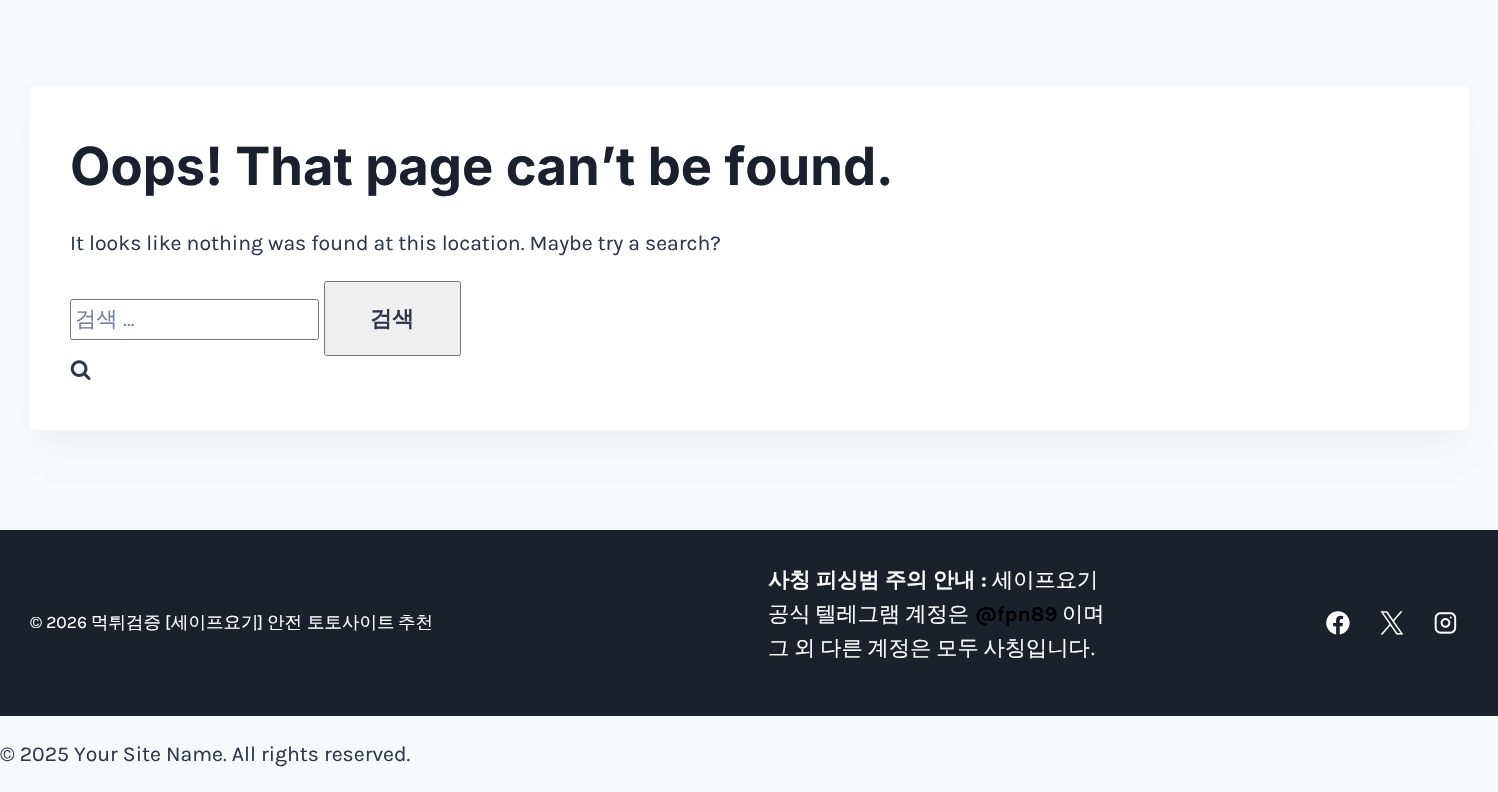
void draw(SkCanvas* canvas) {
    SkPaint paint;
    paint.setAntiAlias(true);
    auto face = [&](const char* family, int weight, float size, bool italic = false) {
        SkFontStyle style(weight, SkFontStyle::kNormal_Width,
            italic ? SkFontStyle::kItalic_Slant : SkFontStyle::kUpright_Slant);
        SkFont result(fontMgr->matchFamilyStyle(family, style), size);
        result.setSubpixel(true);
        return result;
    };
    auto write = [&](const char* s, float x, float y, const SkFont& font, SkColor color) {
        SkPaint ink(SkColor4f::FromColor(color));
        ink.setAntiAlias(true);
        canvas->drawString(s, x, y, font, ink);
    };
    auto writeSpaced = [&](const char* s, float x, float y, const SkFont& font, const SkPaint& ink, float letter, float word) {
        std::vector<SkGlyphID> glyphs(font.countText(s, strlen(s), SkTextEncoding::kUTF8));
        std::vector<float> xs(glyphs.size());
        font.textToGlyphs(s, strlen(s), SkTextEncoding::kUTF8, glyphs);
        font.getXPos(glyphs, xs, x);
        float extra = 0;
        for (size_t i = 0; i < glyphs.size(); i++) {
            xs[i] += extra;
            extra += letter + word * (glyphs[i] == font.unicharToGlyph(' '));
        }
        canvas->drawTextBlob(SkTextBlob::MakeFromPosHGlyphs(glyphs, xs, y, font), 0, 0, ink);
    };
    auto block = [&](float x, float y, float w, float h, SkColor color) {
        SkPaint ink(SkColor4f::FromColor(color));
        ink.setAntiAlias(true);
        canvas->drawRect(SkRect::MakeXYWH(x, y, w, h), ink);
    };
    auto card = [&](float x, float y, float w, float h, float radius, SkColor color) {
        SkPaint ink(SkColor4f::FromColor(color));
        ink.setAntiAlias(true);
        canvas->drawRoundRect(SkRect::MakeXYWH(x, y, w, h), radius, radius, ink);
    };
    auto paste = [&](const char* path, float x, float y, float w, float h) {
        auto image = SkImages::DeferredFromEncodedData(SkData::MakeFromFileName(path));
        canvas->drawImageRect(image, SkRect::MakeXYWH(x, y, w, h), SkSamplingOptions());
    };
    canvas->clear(SkColorSetRGB(247, 250, 252));
    paint.setColor(SkColorSetARGB(13, 0, 0, 0));
    paint.setMaskFilter(SkMaskFilter::MakeBlur(kNormal_SkBlurStyle, 15.5f));
    canvas->drawRect(SkRect::MakeXYWH(43, 118, 1413, 318), paint);
    paint.setMaskFilter(nullptr);
    card(30, 86, 1439, 344, 5, SK_ColorWHITE);
    auto kFont1 = face("Inter", 700, 52.5f);
    write("Oops! That page can’t be found.", 70, 185, kFont1, SkColorSetRGB(26, 32, 44));
    auto kFont2 = face("Karla", 400, 21.25f);
    write("It looks like nothing was found at this location. Maybe try a search?", 70, 250, kFont2, SkColorSetRGB(45, 55, 72));
    paint.setStyle(SkPaint::kStroke_Style);
    paint.setStrokeWidth(1);
    paint.setColor(SkColorSetRGB(118, 118, 118));
    canvas->drawRoundRect(SkRect::MakeXYWH(70.5f, 299.5f, 248, 40), 2, 2, paint);
    auto kFont3 = face("WenQuanYi Zen Hei", 500, 21.25f);
    write("검색", 75, 326, kFont3, SkColorSetRGB(113, 128, 150));
    write("…", 123, 326, kFont2, SkColorSetRGB(113, 128, 150));
    paint.setStyle(SkPaint::kFill_Style);
    paint.setColor(SkColorSetRGB(239, 239, 239));
    canvas->drawRoundRect(SkRect::MakeXYWH(324.5f, 281.5f, 136, 74), 2, 2, paint);
    paint.setStyle(SkPaint::kStroke_Style);
    paint.setColor(SkColorSetRGB(118, 118, 118));
    canvas->drawRoundRect(SkRect::MakeXYWH(324.5f, 281.5f, 136, 74), 2, 2, paint);
    auto kFont4 = face("WenQuanYi Zen Hei", 700, 22);
    write("검색", 370, 326, kFont4, SkColorSetRGB(45, 55, 72));
    paste("pic1.png", 70, 360, 21, 20);
    block(0, 530, 1498, 186, SkColorSetRGB(26, 32, 44));
    auto kFont5 = face("Karla", 400, 17.5f);
    write("© 2026", 30, 628, kFont5, SK_ColorWHITE);
    auto kFont6 = face("WenQuanYi Zen Hei", 500, 17.5f);
    write("먹튀검증", 91, 628, kFont6, SK_ColorWHITE);
    write("[", 165, 628, kFont5, SK_ColorWHITE);
    write("세이프요기", 171, 628, kFont6, SK_ColorWHITE);
    write("]", 258, 628, kFont5, SK_ColorWHITE);
    write("안전", 267, 628, kFont6, SK_ColorWHITE);
    write("토토사이트", 307, 628, kFont6, SK_ColorWHITE);
    write("추천", 398, 628, kFont6, SK_ColorWHITE);
    auto kFont7 = face("WenQuanYi Zen Hei", 700, 21.25f);
    paint.setStyle(SkPaint::kFill_Style);
    paint.setColor(SK_ColorWHITE);
    writeSpaced("사칭 피싱범 주의 안내", 768, 587, kFont7, paint, 0, -1);
    auto kFont8 = face("Karla", 700, 21.25f);
    write(":", 981, 587, kFont8, SK_ColorWHITE);
    write("세이프요기", 992, 587, kFont3, SK_ColorWHITE);
    writeSpaced("공식 텔레그램 계정은", 768, 621, kFont3, paint, 0, -1.5f);
    write("@fpn89", 975, 621, kFont8, SK_ColorBLACK);
    write("이며", 1062, 621, kFont3, SK_ColorWHITE);
    writeSpaced("그 외 다른 계정은 모두 사칭입니다", 768, 655, kFont3, paint, 0, -1.5f);
    write(".", 1091, 655, kFont2, SK_ColorWHITE);
    paste("pic2.png", 1326, 611, 24, 24);
    paste("pic3.png", 1380, 611, 24, 24);
    paste("pic4.png", 1434, 612, 23, 22);
    write("© 2025 Your Site Name. All rights reserved.", 0, 761, kFont2, SkColorSetRGB(45, 55, 72));
}
